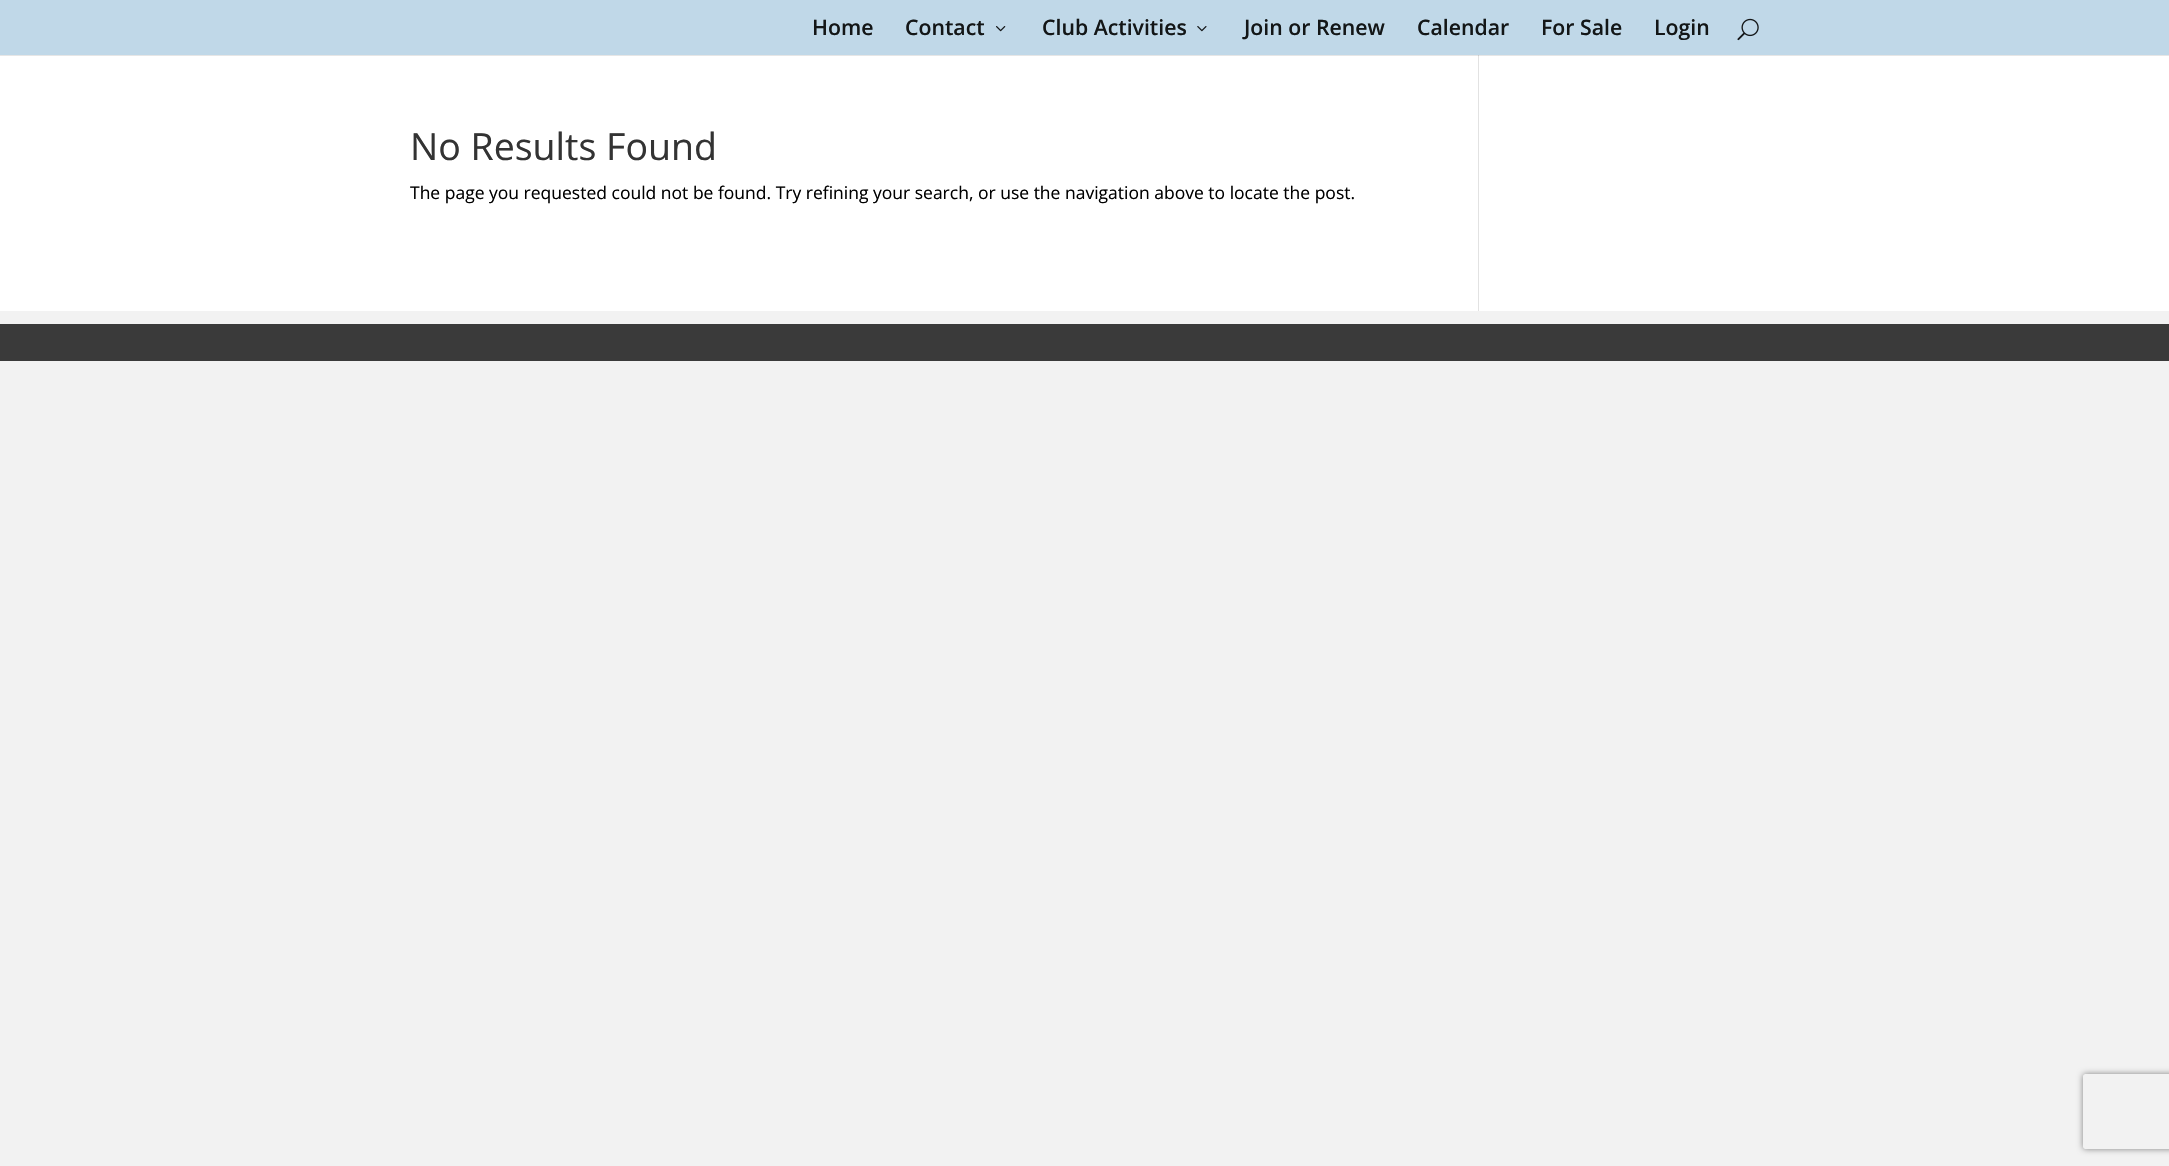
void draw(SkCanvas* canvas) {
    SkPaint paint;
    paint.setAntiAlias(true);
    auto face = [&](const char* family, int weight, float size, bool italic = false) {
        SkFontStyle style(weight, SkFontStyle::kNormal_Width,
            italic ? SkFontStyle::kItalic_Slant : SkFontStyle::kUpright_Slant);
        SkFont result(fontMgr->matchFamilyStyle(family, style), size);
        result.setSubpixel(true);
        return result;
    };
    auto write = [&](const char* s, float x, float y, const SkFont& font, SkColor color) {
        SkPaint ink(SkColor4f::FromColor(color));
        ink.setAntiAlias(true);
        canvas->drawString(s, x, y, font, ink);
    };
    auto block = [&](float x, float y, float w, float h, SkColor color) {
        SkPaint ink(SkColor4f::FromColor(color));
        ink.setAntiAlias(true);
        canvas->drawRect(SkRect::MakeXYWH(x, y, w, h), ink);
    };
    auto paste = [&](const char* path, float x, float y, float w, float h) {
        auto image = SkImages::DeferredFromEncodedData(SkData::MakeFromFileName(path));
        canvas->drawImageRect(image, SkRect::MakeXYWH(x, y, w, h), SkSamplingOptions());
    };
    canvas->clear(SkColorSetRGB(242, 242, 242));
    block(0, 0, 2169, 55, SkColorSetRGB(192, 216, 232));
    auto kFont1 = face("Open Sans", 600, 21.25f);
    write("Home", 812, 35, kFont1, SkColorSetRGB(19, 22, 23));
    write("Contact", 905, 35, kFont1, SkColorSetRGB(19, 22, 23));
    paste("pic1.png", 996, 26, 10, 6);
    write("Club Activities", 1042, 35, kFont1, SkColorSetRGB(19, 22, 23));
    paste("pic2.png", 1197, 26, 10, 6);
    write("Join or Renew", 1244, 35, kFont1, SkColorSetRGB(19, 22, 23));
    write("Calendar", 1417, 35, kFont1, SkColorSetRGB(19, 22, 23));
    write("For Sale", 1541, 35, kFont1, SkColorSetRGB(19, 22, 23));
    write("Login", 1654, 35, kFont1, SkColorSetRGB(19, 22, 23));
    paste("pic3.png", 1737, 18, 22, 23);
    block(0, 56, 2169, 255, SK_ColorWHITE);
    block(0, 55, 2169, 1, SkColorSetRGB(230, 230, 230));
    auto kFont2 = face("Open Sans", 400, 37.5f);
    write("No Results Found", 410, 160, kFont2, SkColorSetRGB(51, 51, 51));
    auto kFont3 = face("Open Sans", 400, 17.5f);
    write("The page you requested could not be found. Try refining your search, or use the navigation above to locate the post.", 410, 199, kFont3, SK_ColorBLACK);
    block(1478, 55, 1, 256, SkColorSetRGB(226, 226, 226));
    block(1478, 55, 1, 1, SkColorSetRGB(203, 203, 203));
    block(0, 324, 2169, 37, SkColorSetRGB(58, 58, 58));
    canvas->save();
    canvas->clipPath(SkPathBuilder(SkPathFillType::kEvenOdd).moveTo(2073, 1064).lineTo(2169, 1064).lineTo(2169, 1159).lineTo(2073, 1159).close().moveTo(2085.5f, 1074).lineTo(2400.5f, 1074).cubicTo(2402, 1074, 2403, 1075, 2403, 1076.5f).lineTo(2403, 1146.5f).cubicTo(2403, 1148, 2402, 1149, 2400.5f, 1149).lineTo(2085.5f, 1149).cubicTo(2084, 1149, 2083, 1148, 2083, 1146.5f).lineTo(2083, 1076.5f).cubicTo(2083, 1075, 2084, 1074, 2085.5f, 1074).close().detach(), true);
    paint.setColor(SkColorSetRGB(128, 128, 128));
    paint.setMaskFilter(SkMaskFilter::MakeBlur(kNormal_SkBlurStyle, 3));
    canvas->drawRoundRect(SkRect::MakeXYWH(2083, 1074, 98, 75), 2.5f, 2.5f, paint);
    paint.setMaskFilter(nullptr);
    canvas->restore();
}
